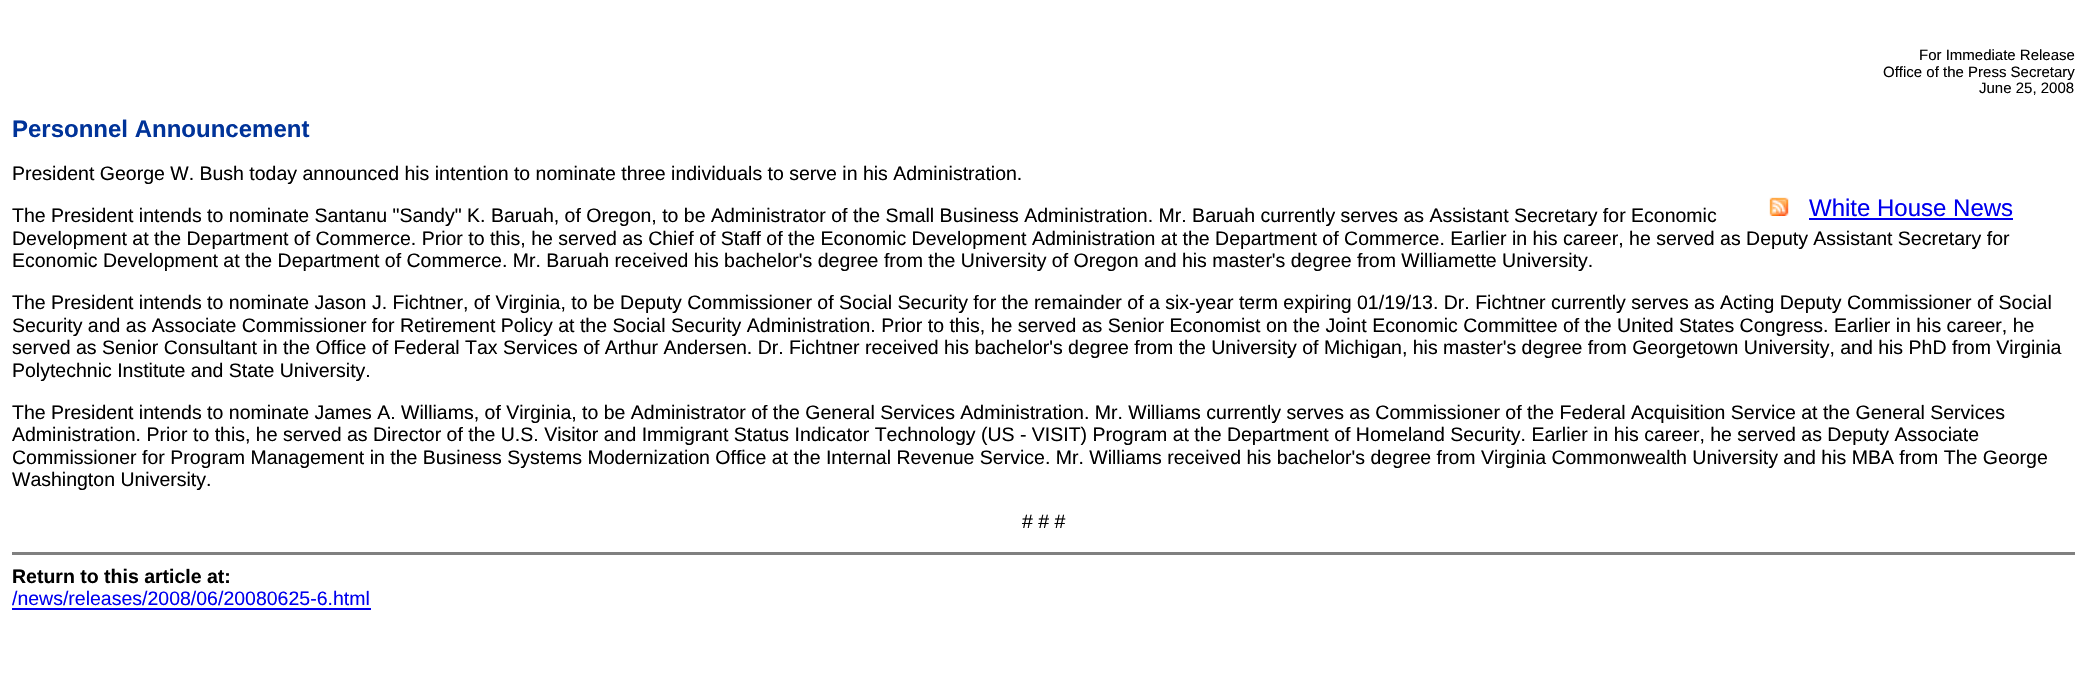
void draw(SkCanvas* canvas) {
    SkPaint paint;
    paint.setAntiAlias(true);
    auto face = [&](const char* family, int weight, float size, bool italic = false) {
        SkFontStyle style(weight, SkFontStyle::kNormal_Width,
            italic ? SkFontStyle::kItalic_Slant : SkFontStyle::kUpright_Slant);
        SkFont result(fontMgr->matchFamilyStyle(family, style), size);
        result.setSubpixel(true);
        return result;
    };
    auto write = [&](const char* s, float x, float y, const SkFont& font, SkColor color) {
        SkPaint ink(SkColor4f::FromColor(color));
        ink.setAntiAlias(true);
        canvas->drawString(s, x, y, font, ink);
    };
    auto block = [&](float x, float y, float w, float h, SkColor color) {
        SkPaint ink(SkColor4f::FromColor(color));
        ink.setAntiAlias(true);
        canvas->drawRect(SkRect::MakeXYWH(x, y, w, h), ink);
    };
    auto paste = [&](const char* path, float x, float y, float w, float h) {
        auto image = SkImages::DeferredFromEncodedData(SkData::MakeFromFileName(path));
        canvas->drawImageRect(image, SkRect::MakeXYWH(x, y, w, h), SkSamplingOptions());
    };
    canvas->clear(SK_ColorWHITE);
    auto kFont1 = face("Liberation Sans", 400, 15);
    write("For Immediate Release", 1919, 60, kFont1, SK_ColorBLACK);
    write("Office of the Press Secretary", 1883, 77, kFont1, SK_ColorBLACK);
    write("June 25, 2008", 1979, 93, kFont1, SK_ColorBLACK);
    auto kFont2 = face("Liberation Sans", 700, 24);
    write("Personnel Announcement", 12, 137, kFont2, SkColorSetRGB(0, 51, 153));
    auto kFont3 = face("Liberation Sans", 400, 19.5f);
    write("President George W. Bush today announced his intention to nominate three individuals to serve in his Administration.", 12, 180, kFont3, SK_ColorBLACK);
    paste("pic1.png", 1769, 197, 20, 19);
    auto kFont4 = face("Liberation Sans", 400, 24);
    write("White House News", 1809, 216, kFont4, SkColorSetRGB(0, 0, 238));
    block(1809, 218, 204, 2, SkColorSetRGB(0, 0, 238));
    write("The President intends to nominate Santanu \"Sandy\" K. Baruah, of Oregon, to be Administrator of the Small Business Administration. Mr. Baruah currently serves as Assistant Secretary for Economic", 12, 222, kFont3, SK_ColorBLACK);
    write("Development at the Department of Commerce. Prior to this, he served as Chief of Staff of the Economic Development Administration at the Department of Commerce. Earlier in his career, he served as Deputy Assistant Secretary for", 12, 245, kFont3, SK_ColorBLACK);
    write("Economic Development at the Department of Commerce. Mr. Baruah received his bachelor's degree from the University of Oregon and his master's degree from Williamette University.", 12, 267, kFont3, SK_ColorBLACK);
    write("The President intends to nominate Jason J. Fichtner, of Virginia, to be Deputy Commissioner of Social Security for the remainder of a six-year term expiring 01/19/13. Dr. Fichtner currently serves as Acting Deputy Commissioner of Social", 12, 309, kFont3, SK_ColorBLACK);
    write("Security and as Associate Commissioner for Retirement Policy at the Social Security Administration. Prior to this, he served as Senior Economist on the Joint Economic Committee of the United States Congress. Earlier in his career, he", 12, 332, kFont3, SK_ColorBLACK);
    write("served as Senior Consultant in the Office of Federal Tax Services of Arthur Andersen. Dr. Fichtner received his bachelor's degree from the University of Michigan, his master's degree from Georgetown University, and his PhD from Virginia", 12, 354, kFont3, SK_ColorBLACK);
    write("Polytechnic Institute and State University.", 12, 377, kFont3, SK_ColorBLACK);
    write("The President intends to nominate James A. Williams, of Virginia, to be Administrator of the General Services Administration. Mr. Williams currently serves as Commissioner of the Federal Acquisition Service at the General Services", 12, 419, kFont3, SK_ColorBLACK);
    write("Administration. Prior to this, he served as Director of the U.S. Visitor and Immigrant Status Indicator Technology (US - VISIT) Program at the Department of Homeland Security. Earlier in his career, he served as Deputy Associate", 12, 441, kFont3, SK_ColorBLACK);
    write("Commissioner for Program Management in the Business Systems Modernization Office at the Internal Revenue Service. Mr. Williams received his bachelor's degree from Virginia Commonwealth University and his MBA from The George", 12, 464, kFont3, SK_ColorBLACK);
    write("Washington University.", 12, 486, kFont3, SK_ColorBLACK);
    write("# # #", 1022, 528, kFont3, SK_ColorBLACK);
    block(12, 552, 2063, 3, SkColorSetRGB(128, 128, 128));
    auto kFont5 = face("Liberation Sans", 700, 19.5f);
    write("Return to this article at:", 12, 583, kFont5, SK_ColorBLACK);
    write("/news/releases/2008/06/20080625-6.html", 12, 605, kFont3, SkColorSetRGB(0, 0, 238));
    block(12, 608, 359, 2, SkColorSetRGB(0, 0, 238));
}
